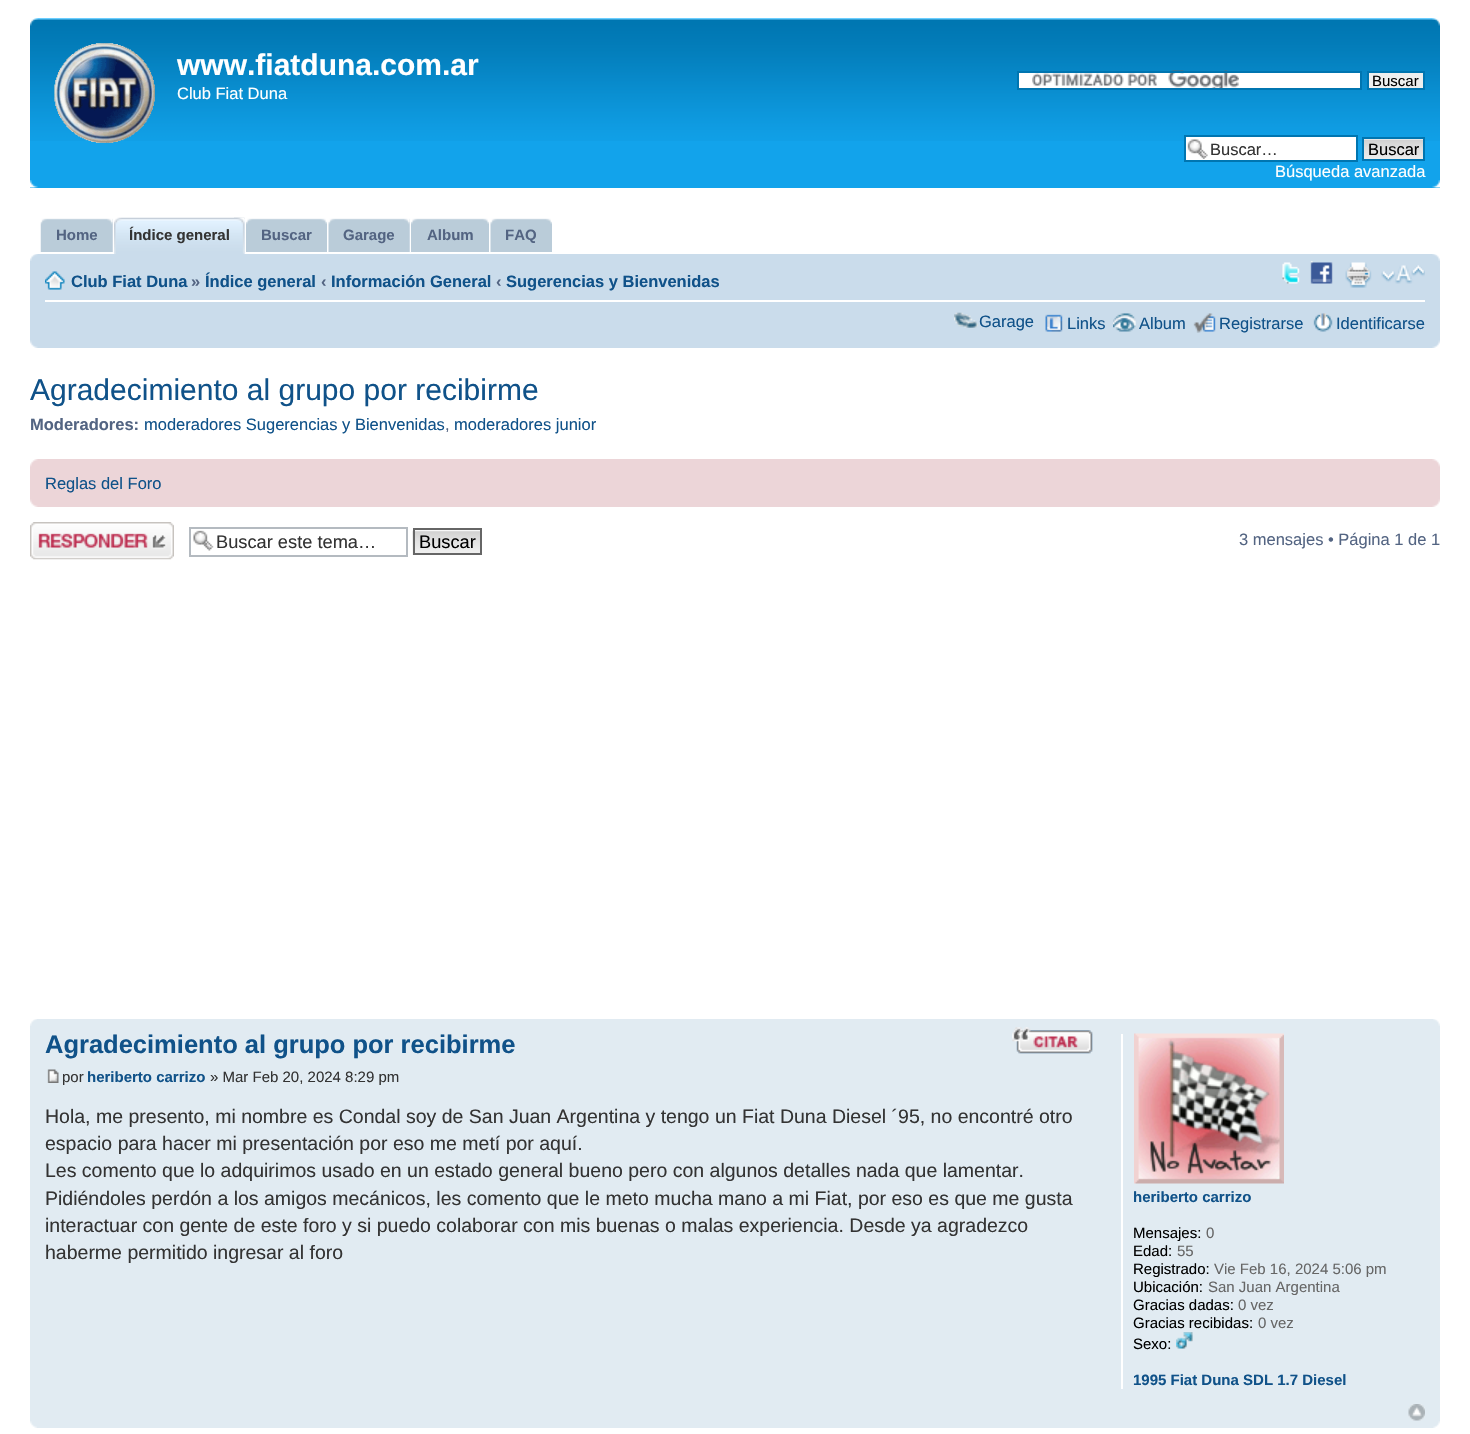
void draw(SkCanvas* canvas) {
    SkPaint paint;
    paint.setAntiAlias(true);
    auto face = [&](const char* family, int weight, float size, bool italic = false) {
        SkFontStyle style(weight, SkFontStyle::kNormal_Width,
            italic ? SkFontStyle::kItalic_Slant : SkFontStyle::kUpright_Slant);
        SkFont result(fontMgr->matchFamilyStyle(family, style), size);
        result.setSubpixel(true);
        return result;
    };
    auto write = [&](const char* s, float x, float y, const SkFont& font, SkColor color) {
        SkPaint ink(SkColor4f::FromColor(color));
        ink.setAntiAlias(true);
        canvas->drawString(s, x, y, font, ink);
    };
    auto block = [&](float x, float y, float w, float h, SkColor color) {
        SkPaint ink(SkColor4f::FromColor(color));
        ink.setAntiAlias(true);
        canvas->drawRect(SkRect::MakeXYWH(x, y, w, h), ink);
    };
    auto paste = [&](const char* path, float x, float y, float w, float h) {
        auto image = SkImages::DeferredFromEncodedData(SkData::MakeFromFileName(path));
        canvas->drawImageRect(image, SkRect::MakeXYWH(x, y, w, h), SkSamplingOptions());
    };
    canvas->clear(SK_ColorWHITE);
    block(30, 141, 1410, 47, SkColorSetRGB(18, 163, 235));
    paste("pic1.png", 30, 18, 1410, 123);
    paste("pic2.png", 30, 18, 8, 8);
    paste("pic3.png", 1432, 18, 8, 8);
    paste("pic4.png", 54, 43, 101, 100);
    auto kFont1 = face("Liberation Sans", 700, 30);
    write("www.fiatduna.com.ar", 177, 75, kFont1, SK_ColorWHITE);
    auto kFont2 = face("Liberation Sans", 400, 16.5f);
    write("Club Fiat Duna", 177, 99, kFont2, SK_ColorWHITE);
    block(1019, 73, 341, 15, SK_ColorWHITE);
    paste("pic5.png", 1032, 70, 207, 18);
    paint.setStyle(SkPaint::kStroke_Style);
    paint.setStrokeWidth(2);
    paint.setColor(SkColorSetRGB(0, 117, 176));
    canvas->drawRect(SkRect::MakeXYWH(1018, 72, 343, 17), paint);
    paint.setStyle(SkPaint::kFill_Style);
    paint.setColor(SkColorSetRGB(239, 239, 239));
    canvas->drawRect(SkRect::MakeXYWH(1368, 72, 56, 17), paint);
    paint.setStyle(SkPaint::kStroke_Style);
    paint.setColor(SkColorSetRGB(0, 117, 176));
    canvas->drawRect(SkRect::MakeXYWH(1368, 72, 56, 17), paint);
    auto kFont3 = face("Liberation Sans", 400, 15);
    write("Buscar", 1372, 86, kFont3, SK_ColorBLACK);
    block(1186, 137, 170, 23, SK_ColorWHITE);
    paste("pic6.png", 1187, 139, 21, 20);
    canvas->drawRect(SkRect::MakeXYWH(1185, 136, 172, 25), paint);
    write("Buscar…", 1210, 155, kFont2, SkColorSetRGB(51, 51, 51));
    paste("pic7.png", 1364, 139, 59, 20);
    canvas->drawRect(SkRect::MakeXYWH(1363, 138, 61, 22), paint);
    write("Buscar", 1368, 155, kFont2, SK_ColorBLACK);
    write("Búsqueda avanzada", 1275, 177, kFont2, SK_ColorWHITE);
    paste("pic8.png", 30, 180, 8, 8);
    paste("pic9.png", 1432, 180, 8, 8);
    paste("pic10.png", 40, 218, 73, 34);
    paste("pic11.png", 107, 218, 6, 34);
    auto kFont4 = face("Liberation Sans", 700, 15);
    write("Home", 56, 240, kFont4, SkColorSetRGB(83, 100, 130));
    paste("pic12.png", 114, 217, 131, 37);
    paste("pic13.png", 234, 217, 11, 37);
    write("Índice general", 129, 240, kFont4, SkColorSetRGB(51, 51, 51));
    paste("pic14.png", 246, 218, 81, 34);
    paste("pic15.png", 321, 218, 6, 6);
    write("Buscar", 261, 240, kFont4, SkColorSetRGB(83, 100, 130));
    paste("pic16.png", 328, 218, 82, 34);
    paste("pic17.png", 404, 218, 6, 34);
    write("Garage", 343, 240, kFont4, SkColorSetRGB(83, 100, 130));
    paste("pic18.png", 411, 218, 78, 34);
    paste("pic15.png", 483, 218, 6, 6);
    write("Album", 427, 240, kFont4, SkColorSetRGB(83, 100, 130));
    paste("pic19.png", 490, 218, 62, 34);
    paste("pic20.png", 546, 218, 6, 6);
    write("FAQ", 505, 240, kFont4, SkColorSetRGB(83, 100, 130));
    block(30, 254, 1410, 94, SkColorSetRGB(202, 220, 235));
    paste("pic21.png", 30, 254, 8, 7);
    paste("pic22.png", 1432, 254, 8, 7);
    block(45, 300, 1380, 2, SK_ColorWHITE);
    paste("pic23.png", 45, 271, 20, 19);
    auto kFont5 = face("Liberation Sans", 700, 16.5f);
    write("Club Fiat Duna", 71, 287, kFont5, SkColorSetRGB(16, 82, 137));
    write("»", 191, 287, kFont5, SkColorSetRGB(83, 100, 130));
    write("Índice general", 205, 287, kFont5, SkColorSetRGB(16, 82, 137));
    write("‹", 321, 287, kFont5, SkColorSetRGB(83, 100, 130));
    write("Información General", 331, 287, kFont5, SkColorSetRGB(16, 82, 137));
    write("‹", 496, 287, kFont5, SkColorSetRGB(83, 100, 130));
    write("Sugerencias y Bienvenidas", 506, 287, kFont5, SkColorSetRGB(16, 82, 137));
    paste("pic24.png", 1282, 262, 18, 22);
    paste("pic25.png", 1310, 261, 23, 23);
    paste("pic26.png", 1345, 262, 27, 26);
    paste("pic27.png", 1381, 265, 44, 19);
    paste("pic28.png", 954, 312, 24, 16);
    write("Garage", 979, 327, kFont2, SkColorSetRGB(16, 82, 137));
    paste("pic29.png", 1045, 314, 18, 18);
    write("Links", 1067, 329, kFont2, SkColorSetRGB(16, 82, 137));
    paste("pic30.png", 1113, 313, 23, 19);
    write("Album", 1139, 329, kFont2, SkColorSetRGB(16, 82, 137));
    paste("pic31.png", 1193, 313, 23, 20);
    write("Registrarse", 1219, 329, kFont2, SkColorSetRGB(16, 82, 137));
    paste("pic32.png", 1313, 313, 20, 19);
    write("Identificarse", 1336, 329, kFont2, SkColorSetRGB(16, 82, 137));
    paste("pic33.png", 30, 340, 8, 8);
    paste("pic34.png", 1432, 340, 8, 8);
    auto kFont6 = face("Liberation Sans", 400, 30);
    write("Agradecimiento al grupo por recibirme", 30, 400, kFont6, SkColorSetRGB(16, 82, 137));
    write("Moderadores:", 30, 430, kFont5, SkColorSetRGB(83, 100, 130));
    write("moderadores Sugerencias y Bienvenidas", 144, 430, kFont2, SkColorSetRGB(16, 82, 137));
    write(",", 445, 430, kFont2, SkColorSetRGB(83, 100, 130));
    write("moderadores junior", 454, 430, kFont2, SkColorSetRGB(16, 82, 137));
    block(30, 459, 1410, 48, SkColorSetRGB(236, 213, 216));
    paste("pic35.png", 30, 459, 8, 8);
    paste("pic36.png", 1432, 459, 8, 8);
    write("Reglas del Foro", 45, 489, kFont2, SkColorSetRGB(16, 82, 137));
    paste("pic37.png", 30, 499, 8, 8);
    paste("pic38.png", 1432, 499, 8, 8);
    paste("pic39.png", 30, 522, 144, 38);
    paste("pic40.png", 193, 530, 21, 21);
    paint.setColor(SkColorSetRGB(180, 186, 192));
    canvas->drawRect(SkRect::MakeXYWH(190, 528, 217, 28), paint);
    auto kFont7 = face("Liberation Sans", 400, 18.25f);
    write("Buscar este tema…", 216, 548, kFont7, SkColorSetRGB(51, 51, 51));
    paste("pic41.png", 412, 530, 68, 25);
    paint.setColor(SkColorSetRGB(102, 102, 102));
    canvas->drawRect(SkRect::MakeXYWH(414, 529, 67, 25), paint);
    write("Buscar", 419, 548, kFont7, SK_ColorBLACK);
    write("3 mensajes • Página 1 de 1", 1239, 545, kFont2, SkColorSetRGB(83, 100, 130));
    block(30, 1019, 1410, 409, SkColorSetRGB(225, 235, 242));
    paste("pic42.png", 30, 1019, 7, 7);
    paste("pic43.png", 1433, 1019, 7, 7);
    auto kFont8 = face("Liberation Sans", 700, 25.5f);
    write("Agradecimiento al grupo por recibirme", 45, 1053, kFont8, SkColorSetRGB(16, 82, 137));
    paste("pic44.png", 1012, 1027, 81, 27);
    paste("pic45.png", 1012, 1027, 81, 27);
    paste("pic46.png", 47, 1069, 12, 14);
    write("por", 62, 1082, kFont3, SkColorSetRGB(51, 51, 51));
    write("heriberto carrizo", 87, 1082, kFont4, SkColorSetRGB(16, 82, 137));
    write("» Mar Feb 20, 2024 8:29 pm", 210, 1082, kFont3, SkColorSetRGB(51, 51, 51));
    auto kFont9 = face("Liberation Sans", 400, 19.5f);
    write("Hola, me presento, mi nombre es Condal soy de San Juan Argentina y tengo un Fiat Duna Diesel ´95, no encontré otro", 45, 1123, kFont9, SkColorSetRGB(51, 51, 51));
    write("espacio para hacer mi presentación por eso me metí por aquí.", 45, 1150, kFont9, SkColorSetRGB(51, 51, 51));
    write("Les comento que lo adquirimos usado en un estado general bueno pero con algunos detalles nada que lamentar.", 45, 1177, kFont9, SkColorSetRGB(51, 51, 51));
    write("Pidiéndoles perdón a los amigos mecánicos, les comento que le meto mucha mano a mi Fiat, por eso es que me gusta", 45, 1205, kFont9, SkColorSetRGB(51, 51, 51));
    write("interactuar con gente de este foro y si puedo colaborar con mis buenas o malas experiencia. Desde ya agradezco", 45, 1232, kFont9, SkColorSetRGB(51, 51, 51));
    write("haberme permitido ingresar al foro", 45, 1259, kFont9, SkColorSetRGB(51, 51, 51));
    block(1121, 1034, 2, 355, SK_ColorWHITE);
    paste("pic47.png", 1134, 1033, 150, 151);
    write("heriberto carrizo", 1133, 1202, kFont4, SkColorSetRGB(16, 82, 137));
    write("Mensajes:", 1133, 1238, kFont3, SK_ColorBLACK);
    write("0", 1206, 1238, kFont3, SkColorSetRGB(102, 102, 102));
    write("Edad:", 1133, 1256, kFont3, SK_ColorBLACK);
    write("55", 1177, 1256, kFont3, SkColorSetRGB(102, 102, 102));
    write("Registrado:", 1133, 1274, kFont3, SK_ColorBLACK);
    write("Vie Feb 16, 2024 5:06 pm", 1214, 1274, kFont3, SkColorSetRGB(102, 102, 102));
    write("Ubicación:", 1133, 1292, kFont3, SK_ColorBLACK);
    write("San Juan Argentina", 1208, 1292, kFont3, SkColorSetRGB(102, 102, 102));
    write("Gracias dadas:", 1133, 1310, kFont3, SK_ColorBLACK);
    write("0 vez", 1238, 1310, kFont3, SkColorSetRGB(102, 102, 102));
    write("Gracias recibidas:", 1133, 1328, kFont3, SK_ColorBLACK);
    write("0 vez", 1258, 1328, kFont3, SkColorSetRGB(102, 102, 102));
    write("Sexo:", 1133, 1349, kFont3, SK_ColorBLACK);
    paste("pic48.png", 1176, 1332, 17, 17);
    write("1995 Fiat Duna SDL 1.7 Diesel", 1133, 1385, kFont4, SkColorSetRGB(16, 82, 137));
    paste("pic49.png", 1408, 1404, 17, 17);
    paste("pic50.png", 30, 1421, 7, 7);
    paste("pic51.png", 1433, 1421, 7, 7);
}
